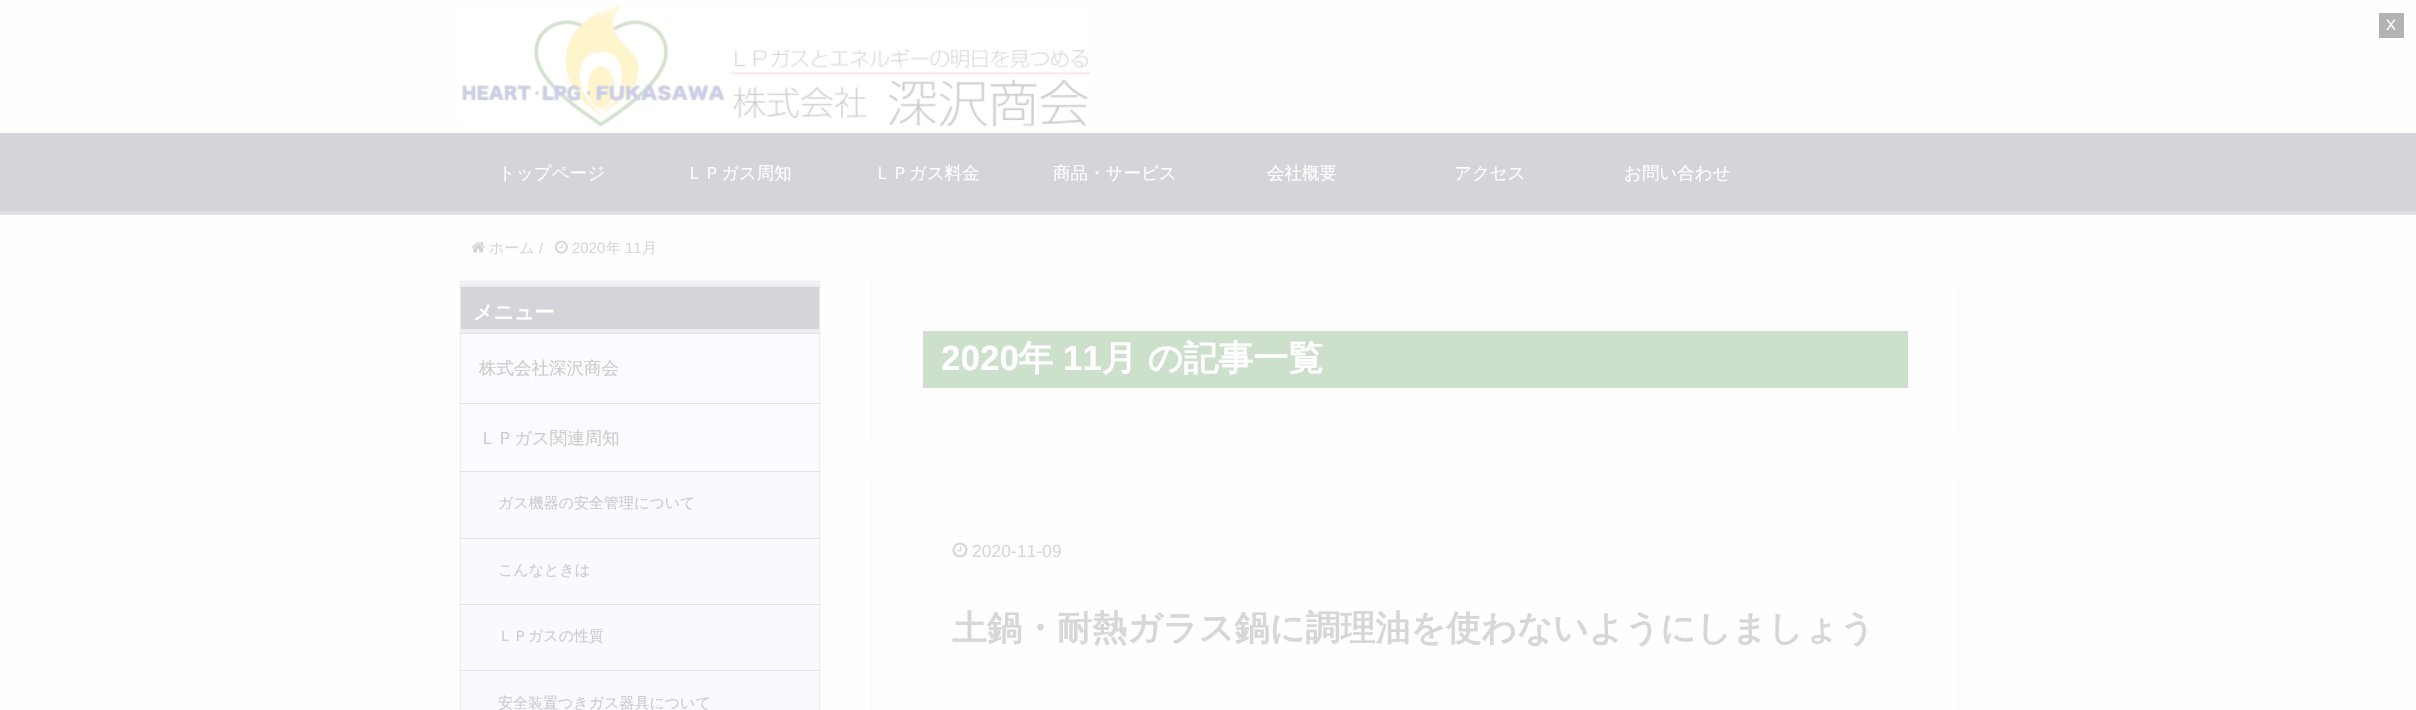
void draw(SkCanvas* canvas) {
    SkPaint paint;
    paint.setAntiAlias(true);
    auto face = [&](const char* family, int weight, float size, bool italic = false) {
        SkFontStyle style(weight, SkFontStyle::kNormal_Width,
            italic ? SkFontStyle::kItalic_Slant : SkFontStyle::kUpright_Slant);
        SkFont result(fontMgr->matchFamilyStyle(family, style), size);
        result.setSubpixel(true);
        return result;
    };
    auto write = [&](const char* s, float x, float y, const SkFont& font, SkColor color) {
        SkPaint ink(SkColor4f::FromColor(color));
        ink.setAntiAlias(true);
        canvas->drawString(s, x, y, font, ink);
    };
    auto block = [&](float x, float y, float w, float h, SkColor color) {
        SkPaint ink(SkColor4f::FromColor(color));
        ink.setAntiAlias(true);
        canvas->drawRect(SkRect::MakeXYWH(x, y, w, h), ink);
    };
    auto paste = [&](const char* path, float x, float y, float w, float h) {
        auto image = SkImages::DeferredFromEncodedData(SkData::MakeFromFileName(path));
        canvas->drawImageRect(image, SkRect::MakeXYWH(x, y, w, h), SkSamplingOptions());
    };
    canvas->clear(SkColorSetRGB(254, 254, 254));
    block(2379, 13, 25, 25, SkColorSetRGB(179, 179, 179));
    auto kFont1 = face("Liberation Sans", 400, 15);
    write("X", 2386, 30, kFont1, SK_ColorWHITE);
    paste("pic1.png", 459, 6, 632, 121);
    block(0, 133, 2416, 78, SkColorSetRGB(212, 213, 218));
    block(0, 211, 2416, 4, SkColorSetRGB(223, 226, 226));
    auto kFont2 = face("WenQuanYi Zen Hei", 500, 17.5f);
    write("トップページ", 498, 179, kFont2, SK_ColorWHITE);
    write("ＬＰガス周知", 686, 179, kFont2, SK_ColorWHITE);
    write("ＬＰガス料金", 874, 179, kFont2, SK_ColorWHITE);
    write("商品・サービス", 1053, 179, kFont2, SK_ColorWHITE);
    write("会社概要", 1267, 179, kFont2, SK_ColorWHITE);
    write("アクセス", 1454, 179, kFont2, SK_ColorWHITE);
    write("お問い合わせ", 1624, 179, kFont2, SK_ColorWHITE);
    paste("pic2.png", 471, 241, 14, 12);
    auto kFont3 = face("WenQuanYi Zen Hei", 500, 15);
    write("ホーム", 489, 253, kFont3, SkColorSetRGB(215, 215, 215));
    write("/", 539, 253, kFont1, SkColorSetRGB(215, 215, 215));
    paste("pic3.png", 555, 240, 13, 14);
    write("2020", 572, 253, kFont1, SkColorSetRGB(215, 215, 215));
    write("年", 606, 253, kFont3, SkColorSetRGB(215, 215, 215));
    write("11", 625, 253, kFont1, SkColorSetRGB(215, 215, 215));
    write("月", 642, 253, kFont3, SkColorSetRGB(215, 215, 215));
    block(461, 282, 358, 1, SkColorSetRGB(244, 245, 251));
    paint.setStyle(SkPaint::kStroke_Style);
    paint.setStrokeWidth(1);
    paint.setColor(SkColorSetRGB(247, 248, 248));
    canvas->drawRect(SkRect::MakeXYWH(459.5f, 280.5f, 361, 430), paint);
    paint.setColor(SkColorSetRGB(236, 239, 239));
    canvas->drawRect(SkRect::MakeXYWH(460.5f, 281.5f, 359, 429), paint);
    block(461, 287, 358, 42, SkColorSetRGB(212, 213, 218));
    block(461, 283, 358, 4, SkColorSetRGB(236, 239, 239));
    block(461, 329, 358, 4, SkColorSetRGB(236, 239, 239));
    auto kFont4 = face("WenQuanYi Zen Hei", 700, 20);
    write("メニュー", 473, 319, kFont4, SK_ColorWHITE);
    block(461, 334, 358, 69, SkColorSetRGB(251, 251, 255));
    block(461, 333, 358, 1, SkColorSetRGB(223, 226, 226));
    block(461, 401, 358, 1, SkColorSetRGB(250, 250, 250));
    write("株式会社深沢商会", 479, 374, kFont2, SkColorSetRGB(204, 204, 204));
    block(461, 404, 358, 67, SkColorSetRGB(251, 251, 255));
    block(461, 403, 358, 1, SkColorSetRGB(223, 226, 226));
    write("ＬＰガス関連周知", 479, 444, kFont2, SkColorSetRGB(204, 204, 204));
    block(461, 472, 358, 66, SkColorSetRGB(249, 250, 255));
    block(461, 471, 358, 1, SkColorSetRGB(223, 226, 226));
    block(461, 536, 358, 1, SkColorSetRGB(250, 250, 250));
    write("ガス機器の安全管理について", 498, 508, kFont3, SkColorSetRGB(204, 204, 204));
    block(461, 539, 358, 64, SkColorSetRGB(249, 250, 255));
    block(461, 538, 358, 1, SkColorSetRGB(223, 226, 226));
    block(461, 603, 358, 1, SkColorSetRGB(250, 250, 250));
    write("こんなときは", 498, 575, kFont3, SkColorSetRGB(204, 204, 204));
    block(461, 605, 358, 64, SkColorSetRGB(249, 250, 255));
    block(461, 604, 358, 1, SkColorSetRGB(223, 226, 226));
    block(461, 669, 358, 1, SkColorSetRGB(250, 250, 250));
    write("ＬＰガスの性質", 498, 641, kFont3, SkColorSetRGB(204, 204, 204));
    block(461, 671, 358, 39, SkColorSetRGB(249, 250, 255));
    block(461, 670, 358, 1, SkColorSetRGB(223, 226, 226));
    write("安全装置つきガス器具について", 498, 708, kFont3, SkColorSetRGB(204, 204, 204));
    paint.setColor(SkColorSetRGB(250, 250, 250));
    canvas->drawRect(SkRect::MakeXYWH(871.5f, 280.5f, 1087, 158), paint);
    block(923, 331, 985, 57, SkColorSetRGB(204, 224, 204));
    auto kFont5 = face("Liberation Sans", 700, 35);
    write("2020", 941, 370, kFont5, SK_ColorWHITE);
    auto kFont6 = face("WenQuanYi Zen Hei", 700, 35);
    write("年", 1018, 370, kFont6, SK_ColorWHITE);
    write("11", 1063, 370, kFont5, SK_ColorWHITE);
    write("月 の記事一覧", 1102, 370, kFont6, SK_ColorWHITE);
    canvas->drawRect(SkRect::MakeXYWH(871.5f, 476.5f, 1087, 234), paint);
    block(1091, 548, 787, 1, SkColorSetRGB(251, 251, 251));
    paste("pic4.png", 952, 542, 16, 16);
    auto kFont7 = face("Liberation Sans", 400, 17.5f);
    write("2020-11-09", 972, 557, kFont7, SkColorSetRGB(215, 215, 215));
    write("土鍋・耐熱ガラス鍋に調理油を使わないようにしましょう", 952, 640, kFont6, SkColorSetRGB(215, 215, 215));
}
